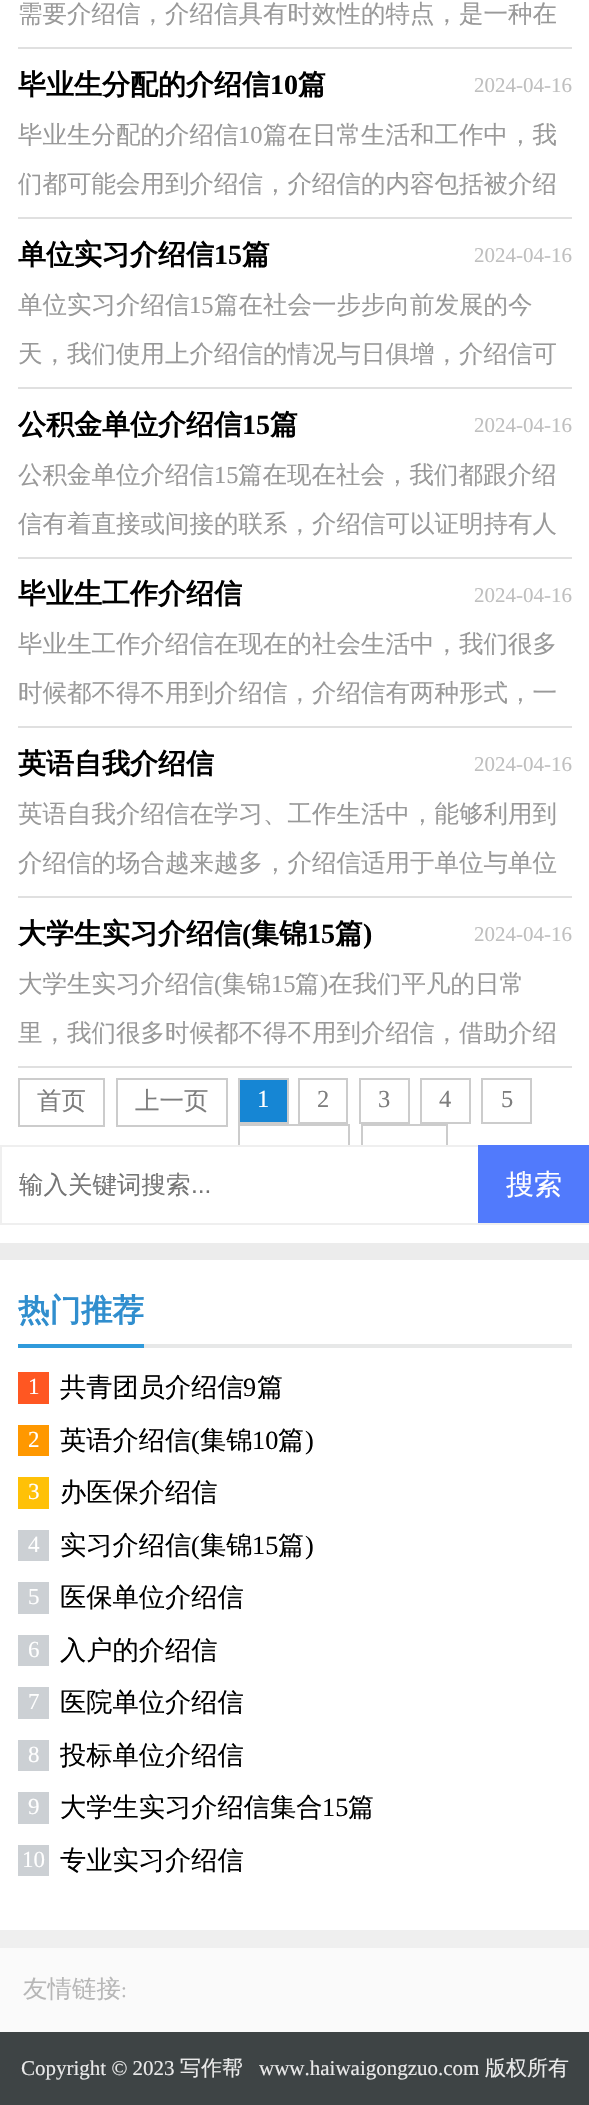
void draw(SkCanvas* canvas) {
    SkPaint paint;
    paint.setAntiAlias(true);
    auto face = [&](const char* family, int weight, float size, bool italic = false) {
        SkFontStyle style(weight, SkFontStyle::kNormal_Width,
            italic ? SkFontStyle::kItalic_Slant : SkFontStyle::kUpright_Slant);
        SkFont result(fontMgr->matchFamilyStyle(family, style), size);
        result.setSubpixel(true);
        return result;
    };
    auto write = [&](const char* s, float x, float y, const SkFont& font, SkColor color) {
        SkPaint ink(SkColor4f::FromColor(color));
        ink.setAntiAlias(true);
        canvas->drawString(s, x, y, font, ink);
    };
    auto block = [&](float x, float y, float w, float h, SkColor color) {
        SkPaint ink(SkColor4f::FromColor(color));
        ink.setAntiAlias(true);
        canvas->drawRect(SkRect::MakeXYWH(x, y, w, h), ink);
    };
    canvas->clear(SK_ColorWHITE);
    block(18, 47, 554, 2, SkColorSetRGB(224, 224, 224));
    auto kFont1 = face("WenQuanYi Zen Hei", 500, 24.5f);
    write("需要介绍信，介绍信具有时效性的特点，是一种在", 18, 22, kFont1, SkColorSetRGB(153, 153, 153));
    block(18, 217, 554, 2, SkColorSetRGB(224, 224, 224));
    auto kFont2 = face("WenQuanYi Zen Hei", 700, 28);
    write("毕业生分配的介绍信", 18, 94, kFont2, SK_ColorBLACK);
    auto kFont3 = face("Liberation Serif", 700, 28);
    write("10", 270, 94, kFont3, SK_ColorBLACK);
    write("篇", 298, 94, kFont2, SK_ColorBLACK);
    auto kFont4 = face("Liberation Serif", 400, 21);
    write("2024-04-16", 474, 92, kFont4, SkColorSetRGB(191, 191, 191));
    write("毕业生分配的介绍信", 18, 143, kFont1, SkColorSetRGB(153, 153, 153));
    auto kFont5 = face("Liberation Serif", 400, 24.5f);
    write("10", 238, 143, kFont5, SkColorSetRGB(153, 153, 153));
    write("篇在日常生活和工作中，我", 263, 143, kFont1, SkColorSetRGB(153, 153, 153));
    write("们都可能会用到介绍信，介绍信的内容包括被介绍", 18, 192, kFont1, SkColorSetRGB(153, 153, 153));
    block(18, 387, 554, 2, SkColorSetRGB(224, 224, 224));
    write("单位实习介绍信", 18, 264, kFont2, SK_ColorBLACK);
    write("15", 214, 264, kFont3, SK_ColorBLACK);
    write("篇", 242, 264, kFont2, SK_ColorBLACK);
    write("2024-04-16", 474, 262, kFont4, SkColorSetRGB(191, 191, 191));
    write("单位实习介绍信", 18, 313, kFont1, SkColorSetRGB(153, 153, 153));
    write("15", 189, 313, kFont5, SkColorSetRGB(153, 153, 153));
    write("篇在社会一步步向前发展的今", 214, 313, kFont1, SkColorSetRGB(153, 153, 153));
    write("天，我们使用上介绍信的情况与日俱增，介绍信可", 18, 362, kFont1, SkColorSetRGB(153, 153, 153));
    block(18, 557, 554, 2, SkColorSetRGB(224, 224, 224));
    write("公积金单位介绍信", 18, 434, kFont2, SK_ColorBLACK);
    write("15", 242, 434, kFont3, SK_ColorBLACK);
    write("篇", 270, 434, kFont2, SK_ColorBLACK);
    write("2024-04-16", 474, 432, kFont4, SkColorSetRGB(191, 191, 191));
    write("公积金单位介绍信", 18, 483, kFont1, SkColorSetRGB(153, 153, 153));
    write("15", 214, 483, kFont5, SkColorSetRGB(153, 153, 153));
    write("篇在现在社会，我们都跟介绍", 238, 483, kFont1, SkColorSetRGB(153, 153, 153));
    write("信有着直接或间接的联系，介绍信可以证明持有人", 18, 532, kFont1, SkColorSetRGB(153, 153, 153));
    block(18, 726, 554, 2, SkColorSetRGB(224, 224, 224));
    write("毕业生工作介绍信", 18, 603, kFont2, SK_ColorBLACK);
    write("2024-04-16", 474, 602, kFont4, SkColorSetRGB(191, 191, 191));
    write("毕业生工作介绍信在现在的社会生活中，我们很多", 18, 652, kFont1, SkColorSetRGB(153, 153, 153));
    write("时候都不得不用到介绍信，介绍信有两种形式，一", 18, 701, kFont1, SkColorSetRGB(153, 153, 153));
    block(18, 896, 554, 2, SkColorSetRGB(224, 224, 224));
    write("英语自我介绍信", 18, 773, kFont2, SK_ColorBLACK);
    write("2024-04-16", 474, 771, kFont4, SkColorSetRGB(191, 191, 191));
    write("英语自我介绍信在学习、工作生活中，能够利用到", 18, 822, kFont1, SkColorSetRGB(153, 153, 153));
    write("介绍信的场合越来越多，介绍信适用于单位与单位", 18, 871, kFont1, SkColorSetRGB(153, 153, 153));
    block(18, 1066, 554, 2, SkColorSetRGB(224, 224, 224));
    write("大学生实习介绍信", 18, 943, kFont2, SK_ColorBLACK);
    write("(", 242, 943, kFont3, SK_ColorBLACK);
    write("集锦", 251, 943, kFont2, SK_ColorBLACK);
    write("15", 307, 943, kFont3, SK_ColorBLACK);
    write("篇", 335, 943, kFont2, SK_ColorBLACK);
    write(")", 363, 943, kFont3, SK_ColorBLACK);
    write("2024-04-16", 474, 941, kFont4, SkColorSetRGB(191, 191, 191));
    write("大学生实习介绍信", 18, 992, kFont1, SkColorSetRGB(153, 153, 153));
    write("(", 214, 992, kFont5, SkColorSetRGB(153, 153, 153));
    write("集锦", 222, 992, kFont1, SkColorSetRGB(153, 153, 153));
    write("15", 271, 992, kFont5, SkColorSetRGB(153, 153, 153));
    write("篇", 295, 992, kFont1, SkColorSetRGB(153, 153, 153));
    write(")", 320, 992, kFont5, SkColorSetRGB(153, 153, 153));
    write("在我们平凡的日常", 328, 992, kFont1, SkColorSetRGB(153, 153, 153));
    write("里，我们很多时候都不得不用到介绍信，借助介绍", 18, 1041, kFont1, SkColorSetRGB(153, 153, 153));
    paint.setStyle(SkPaint::kStroke_Style);
    paint.setStrokeWidth(2);
    paint.setColor(SkColorSetRGB(204, 204, 204));
    canvas->drawRect(SkRect::MakeXYWH(19, 1079, 85, 47), paint);
    write("首页", 37, 1109, kFont1, SkColorSetRGB(125, 125, 125));
    canvas->drawRect(SkRect::MakeXYWH(117, 1079, 110, 47), paint);
    write("上一页", 135, 1109, kFont1, SkColorSetRGB(125, 125, 125));
    paint.setStyle(SkPaint::kFill_Style);
    paint.setColor(SkColorSetRGB(22, 134, 212));
    canvas->drawRect(SkRect::MakeXYWH(239, 1079, 49, 44), paint);
    paint.setStyle(SkPaint::kStroke_Style);
    paint.setColor(SkColorSetRGB(204, 204, 204));
    canvas->drawRect(SkRect::MakeXYWH(239, 1079, 49, 44), paint);
    write("1", 257, 1107, kFont5, SK_ColorWHITE);
    canvas->drawRect(SkRect::MakeXYWH(299, 1079, 48, 44), paint);
    write("2", 317, 1107, kFont5, SkColorSetRGB(125, 125, 125));
    canvas->drawRect(SkRect::MakeXYWH(360, 1079, 49, 44), paint);
    write("3", 378, 1107, kFont5, SkColorSetRGB(125, 125, 125));
    canvas->drawRect(SkRect::MakeXYWH(421, 1079, 49, 44), paint);
    write("4", 439, 1107, kFont5, SkColorSetRGB(125, 125, 125));
    canvas->drawRect(SkRect::MakeXYWH(482, 1079, 49, 44), paint);
    write("5", 501, 1107, kFont5, SkColorSetRGB(125, 125, 125));
    canvas->drawRect(SkRect::MakeXYWH(239, 1125, 110, 47), paint);
    canvas->drawRect(SkRect::MakeXYWH(362, 1125, 85, 47), paint);
    block(238, 1147, 210, 26, SK_ColorWHITE);
    paint.setColor(SkColorSetRGB(239, 239, 239));
    canvas->drawRect(SkRect::MakeXYWH(1, 1146, 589, 78), paint);
    write("输入关键词搜索", 19, 1193, kFont1, SkColorSetRGB(117, 117, 117));
    auto kFont6 = face("Liberation Sans", 400, 24.5f);
    write("...", 191, 1193, kFont6, SkColorSetRGB(117, 117, 117));
    block(478, 1145, 111, 78, SkColorSetRGB(81, 122, 252));
    auto kFont7 = face("WenQuanYi Zen Hei", 500, 28);
    write("搜索", 506, 1194, kFont7, SK_ColorWHITE);
    block(0, 1243, 589, 17, SkColorSetRGB(236, 236, 236));
    block(144, 1344, 428, 4, SkColorSetRGB(231, 232, 232));
    block(18, 1344, 126, 4, SkColorSetRGB(48, 154, 219));
    auto kFont8 = face("WenQuanYi Zen Hei", 700, 31.5f);
    write("热门推荐", 18, 1321, kFont8, SkColorSetRGB(48, 142, 206));
    block(18, 1372, 31, 32, SkColorSetRGB(255, 87, 34));
    auto kFont9 = face("Liberation Serif", 400, 23);
    write("1", 28, 1394, kFont9, SK_ColorWHITE);
    auto kFont10 = face("WenQuanYi Zen Hei", 500, 26.25f);
    write("共青团员介绍信", 60, 1396, kFont10, SK_ColorBLACK);
    auto kFont11 = face("Liberation Serif", 400, 26.25f);
    write("9", 243, 1396, kFont11, SK_ColorBLACK);
    write("篇", 257, 1396, kFont10, SK_ColorBLACK);
    block(18, 1425, 31, 31, SkColorSetRGB(255, 152, 0));
    write("2", 28, 1447, kFont9, SK_ColorWHITE);
    write("英语介绍信", 60, 1449, kFont10, SK_ColorBLACK);
    write("(", 191, 1449, kFont11, SK_ColorBLACK);
    write("集锦", 200, 1449, kFont10, SK_ColorBLACK);
    write("10", 252, 1449, kFont11, SK_ColorBLACK);
    write("篇", 278, 1449, kFont10, SK_ColorBLACK);
    write(")", 305, 1449, kFont11, SK_ColorBLACK);
    block(18, 1477, 31, 32, SkColorSetRGB(255, 193, 7));
    write("3", 28, 1499, kFont9, SK_ColorWHITE);
    write("办医保介绍信", 60, 1501, kFont10, SK_ColorBLACK);
    block(18, 1530, 31, 31, SkColorSetRGB(204, 208, 212));
    write("4", 28, 1552, kFont9, SK_ColorWHITE);
    write("实习介绍信", 60, 1554, kFont10, SK_ColorBLACK);
    write("(", 191, 1554, kFont11, SK_ColorBLACK);
    write("集锦", 200, 1554, kFont10, SK_ColorBLACK);
    write("15", 252, 1554, kFont11, SK_ColorBLACK);
    write("篇", 278, 1554, kFont10, SK_ColorBLACK);
    write(")", 305, 1554, kFont11, SK_ColorBLACK);
    block(18, 1582, 31, 32, SkColorSetRGB(204, 208, 212));
    write("5", 28, 1604, kFont9, SK_ColorWHITE);
    write("医保单位介绍信", 60, 1606, kFont10, SK_ColorBLACK);
    block(18, 1635, 31, 31, SkColorSetRGB(204, 208, 212));
    write("6", 28, 1657, kFont9, SK_ColorWHITE);
    write("入户的介绍信", 60, 1659, kFont10, SK_ColorBLACK);
    block(18, 1687, 31, 32, SkColorSetRGB(204, 208, 212));
    write("7", 28, 1709, kFont9, SK_ColorWHITE);
    write("医院单位介绍信", 60, 1711, kFont10, SK_ColorBLACK);
    block(18, 1740, 31, 31, SkColorSetRGB(204, 208, 212));
    write("8", 28, 1762, kFont9, SK_ColorWHITE);
    write("投标单位介绍信", 60, 1764, kFont10, SK_ColorBLACK);
    block(18, 1792, 31, 32, SkColorSetRGB(204, 208, 212));
    write("9", 28, 1814, kFont9, SK_ColorWHITE);
    write("大学生实习介绍信集合", 60, 1816, kFont10, SK_ColorBLACK);
    write("15", 322, 1816, kFont11, SK_ColorBLACK);
    write("篇", 348, 1816, kFont10, SK_ColorBLACK);
    block(18, 1845, 31, 31, SkColorSetRGB(204, 208, 212));
    write("10", 22, 1867, kFont9, SK_ColorWHITE);
    write("专业实习介绍信", 60, 1869, kFont10, SK_ColorBLACK);
    block(0, 1948, 589, 84, SkColorSetRGB(250, 250, 250));
    block(0, 1930, 589, 18, SkColorSetRGB(239, 239, 239));
    write("友情链接", 23, 1997, kFont1, SkColorSetRGB(183, 183, 183));
    write(":", 121, 1997, kFont4, SkColorSetRGB(183, 183, 183));
    block(0, 2032, 589, 73, SkColorSetRGB(62, 68, 69));
    write("Copyright © 2023", 21, 2075, kFont4, SkColorSetRGB(234, 234, 234));
    auto kFont12 = face("WenQuanYi Zen Hei", 500, 21);
    write("写作帮", 180, 2075, kFont12, SkColorSetRGB(234, 234, 234));
    write("www.haiwaigongzuo.com", 259, 2075, kFont4, SkColorSetRGB(234, 234, 234));
    write("版权所有", 485, 2075, kFont12, SkColorSetRGB(234, 234, 234));
}
